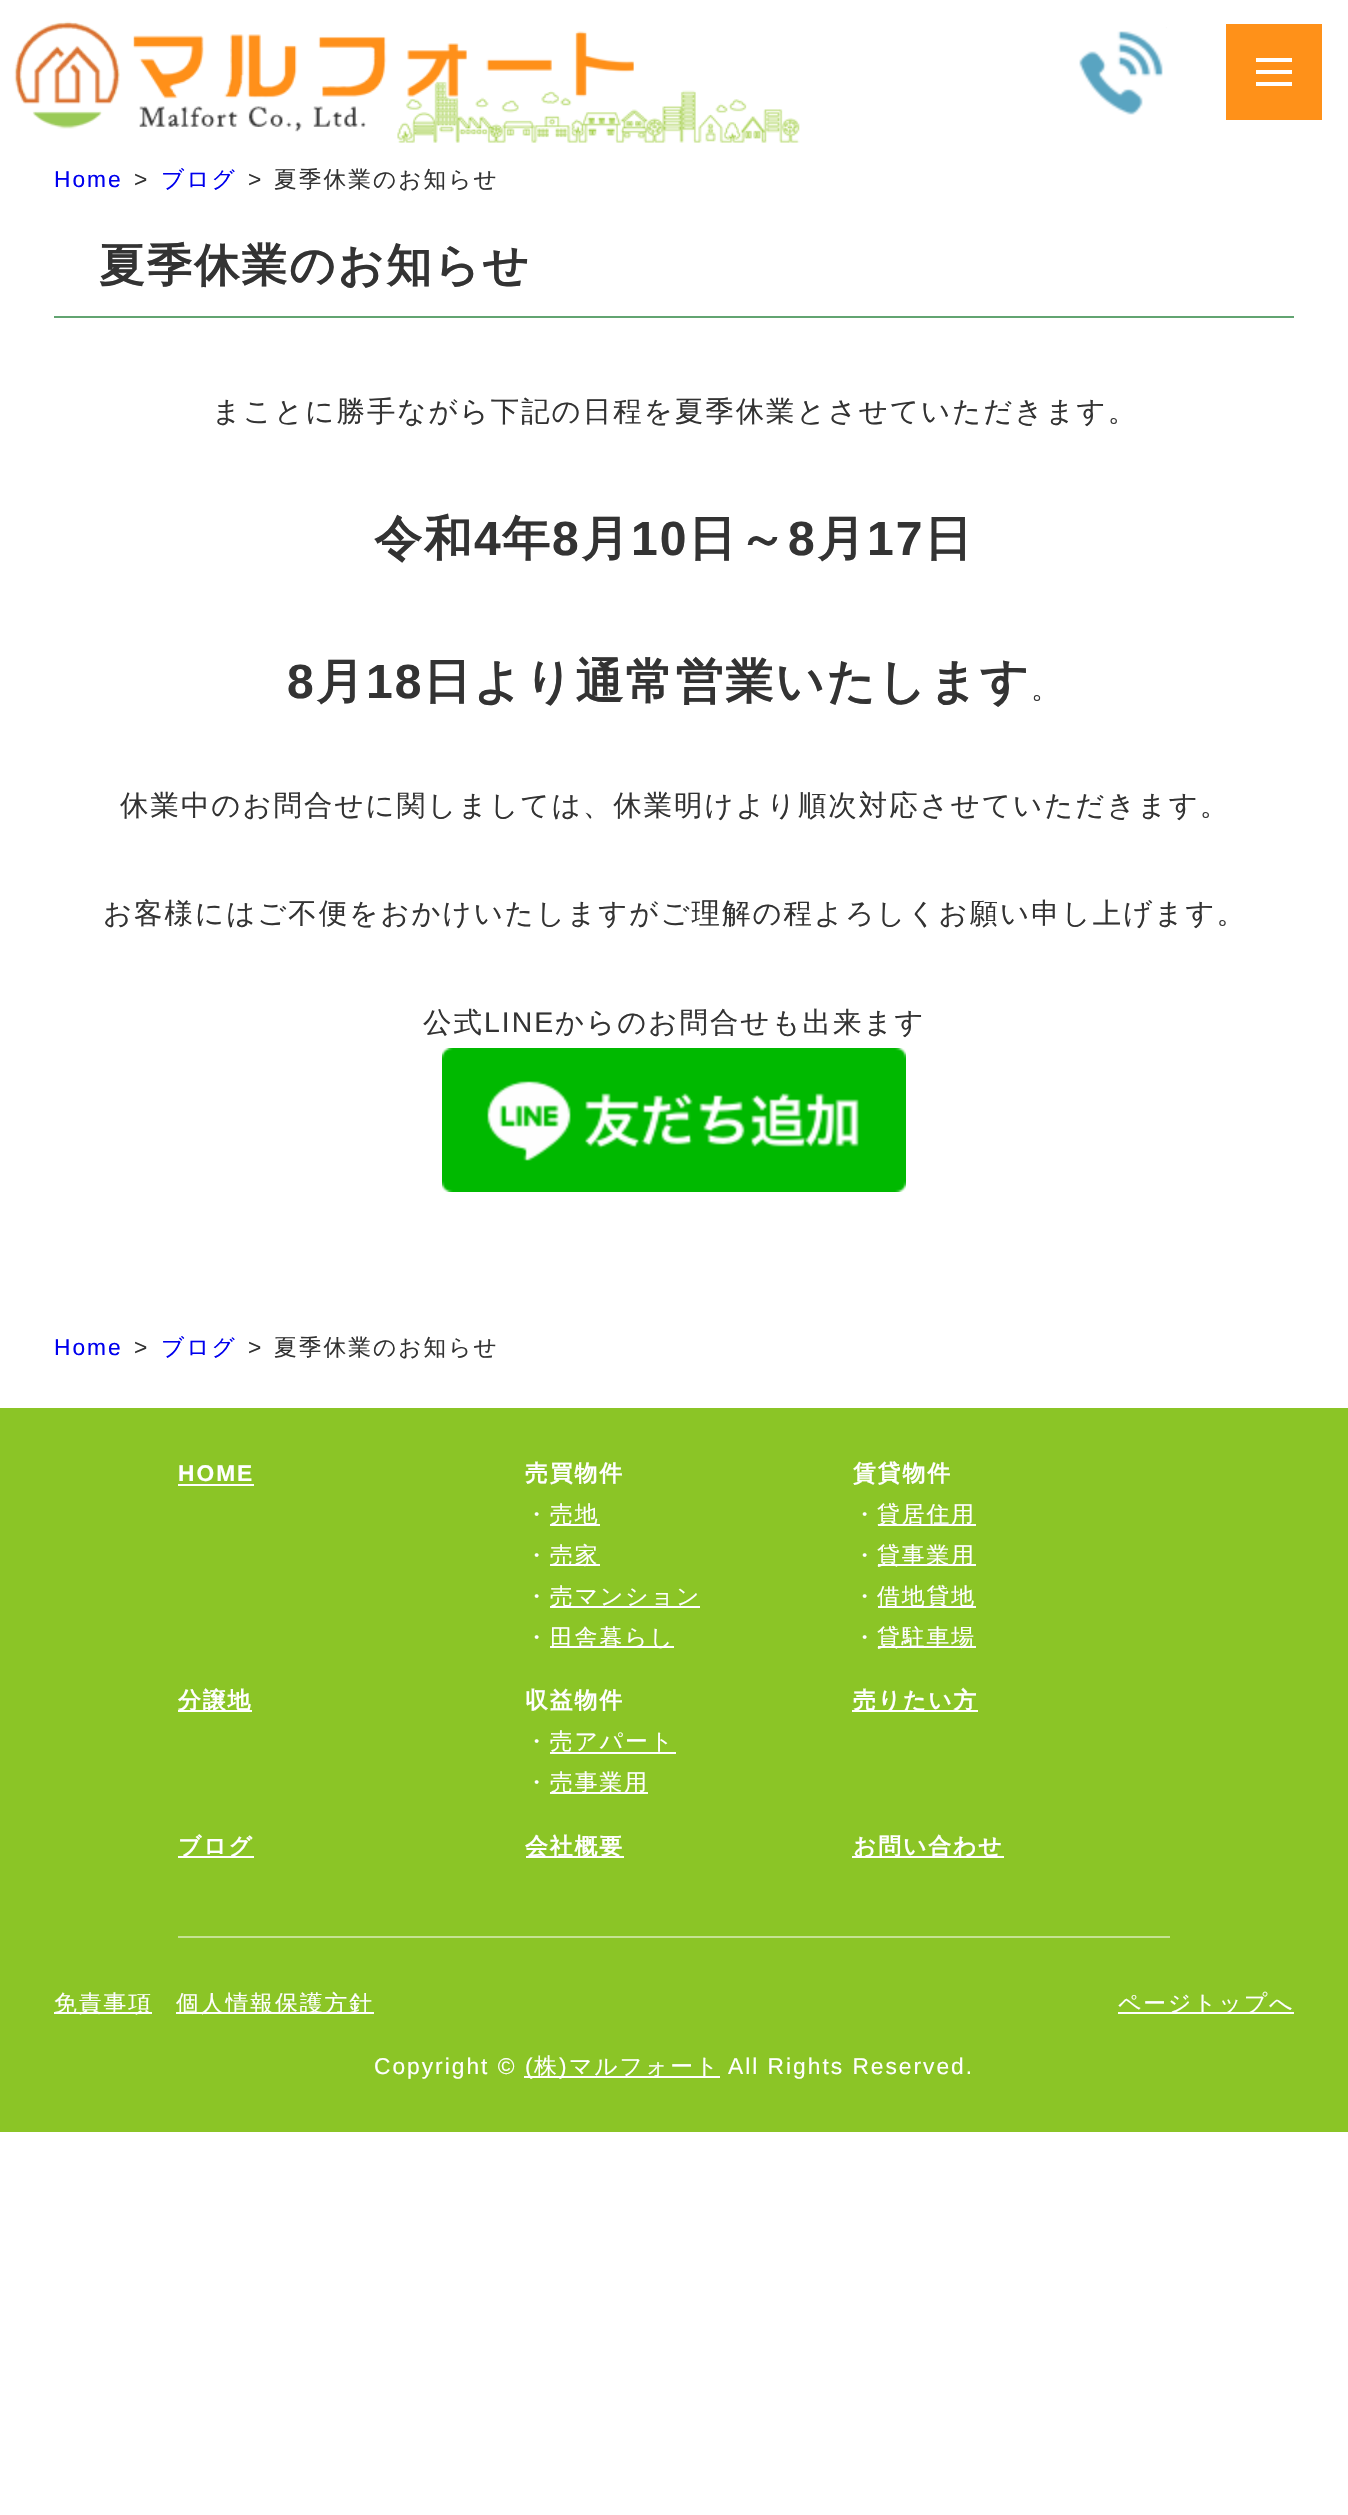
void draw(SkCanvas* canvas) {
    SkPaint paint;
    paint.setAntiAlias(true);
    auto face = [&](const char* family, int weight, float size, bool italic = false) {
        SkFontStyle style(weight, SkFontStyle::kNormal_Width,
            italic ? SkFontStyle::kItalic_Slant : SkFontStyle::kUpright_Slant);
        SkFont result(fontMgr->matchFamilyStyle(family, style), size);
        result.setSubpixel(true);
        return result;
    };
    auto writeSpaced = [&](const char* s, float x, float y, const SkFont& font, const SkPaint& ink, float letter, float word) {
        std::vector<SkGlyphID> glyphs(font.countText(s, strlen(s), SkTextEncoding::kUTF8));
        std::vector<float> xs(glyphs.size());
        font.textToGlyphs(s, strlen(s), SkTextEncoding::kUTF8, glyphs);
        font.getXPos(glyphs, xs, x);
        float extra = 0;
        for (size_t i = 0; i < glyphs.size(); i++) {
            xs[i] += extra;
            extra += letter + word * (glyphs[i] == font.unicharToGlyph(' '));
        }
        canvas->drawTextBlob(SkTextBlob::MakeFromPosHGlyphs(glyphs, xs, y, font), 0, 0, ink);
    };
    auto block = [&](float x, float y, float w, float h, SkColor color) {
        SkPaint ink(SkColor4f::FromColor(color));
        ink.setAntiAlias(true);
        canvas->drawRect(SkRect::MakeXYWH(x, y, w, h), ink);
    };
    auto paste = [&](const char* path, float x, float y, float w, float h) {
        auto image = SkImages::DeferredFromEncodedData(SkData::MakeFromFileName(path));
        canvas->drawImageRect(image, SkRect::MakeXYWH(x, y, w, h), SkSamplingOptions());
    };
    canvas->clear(SK_ColorWHITE);
    paste("pic1.png", 14, 21, 786, 122);
    paste("pic2.png", 1079, 27, 88, 88);
    block(1226, 24, 96, 96, SkColorSetRGB(255, 145, 25));
    block(1256, 70, 36, 4, SK_ColorWHITE);
    block(1256, 58, 36, 4, SK_ColorWHITE);
    block(1256, 82, 36, 4, SK_ColorWHITE);
    auto kFont1 = face("Liberation Sans", 400, 22.75f);
    paint.setColor(SkColorSetRGB(0, 0, 238));
    writeSpaced("Home", 54, 187, kFont1, paint, 2, 0);
    paint.setColor(SkColorSetRGB(51, 51, 51));
    writeSpaced(">", 134, 187, kFont1, paint, 2, 0);
    auto kFont2 = face("WenQuanYi Zen Hei", 500, 22.75f);
    paint.setColor(SkColorSetRGB(0, 0, 238));
    writeSpaced("ブログ", 161, 187, kFont2, paint, 2, 0);
    paint.setColor(SkColorSetRGB(51, 51, 51));
    writeSpaced(">", 248, 187, kFont1, paint, 2, 0);
    writeSpaced("夏季休業のお知らせ", 274, 187, kFont2, paint, 2, 0);
    block(54, 316, 1240, 2, SkColorSetRGB(98, 164, 113));
    auto kFont3 = face("WenQuanYi Zen Hei", 700, 45.5f);
    writeSpaced("夏季休業のお知らせ", 99, 281, kFont3, paint, 2, 0);
    auto kFont4 = face("WenQuanYi Zen Hei", 500, 28.45f);
    writeSpaced("まことに勝手ながら下記の日程を夏季休業とさせていただきます。", 212, 421, kFont4, paint, 2, 0);
    auto kFont5 = face("WenQuanYi Zen Hei", 700, 48);
    writeSpaced("令和", 374, 555, kFont5, paint, 2, 0);
    auto kFont6 = face("Liberation Sans", 700, 48);
    writeSpaced("4", 474, 555, kFont6, paint, 2, 0);
    writeSpaced("年", 502, 555, kFont5, paint, 2, 0);
    writeSpaced("8", 552, 555, kFont6, paint, 2, 0);
    writeSpaced("月", 581, 555, kFont5, paint, 2, 0);
    writeSpaced("10", 631, 555, kFont6, paint, 2, 0);
    writeSpaced("日～", 688, 555, kFont5, paint, 2, 0);
    writeSpaced("8", 788, 555, kFont6, paint, 2, 0);
    writeSpaced("月", 817, 555, kFont5, paint, 2, 0);
    writeSpaced("17", 867, 555, kFont6, paint, 2, 0);
    writeSpaced("日", 924, 555, kFont5, paint, 2, 0);
    writeSpaced("8", 287, 698, kFont6, paint, 2, 0);
    writeSpaced("月", 316, 698, kFont5, paint, 2, 0);
    writeSpaced("18", 366, 698, kFont6, paint, 2, 0);
    writeSpaced("日より通常営業いたします", 423, 698, kFont5, paint, 2, 0);
    writeSpaced("。", 1031, 698, kFont4, paint, 2, 0);
    writeSpaced("休業中のお問合せに関しましては、休業明けより順次対応させていただきます。", 120, 815, kFont4, paint, 2, 0);
    writeSpaced("お客様にはご不便をおかけいたしますがご理解の程よろしくお願い申し上げます。", 103, 923, kFont4, paint, 2, 0);
    writeSpaced("公式", 423, 1032, kFont4, paint, 2, 0);
    auto kFont7 = face("Liberation Sans", 400, 28.45f);
    writeSpaced("LINE", 484, 1032, kFont7, paint, 2, 0);
    writeSpaced("からのお問合せも出来ます", 555, 1032, kFont4, paint, 2, 0);
    paste("pic3.png", 442, 1048, 464, 144);
    paint.setColor(SkColorSetRGB(0, 0, 238));
    writeSpaced("Home", 54, 1355, kFont1, paint, 2, 0);
    paint.setColor(SkColorSetRGB(51, 51, 51));
    writeSpaced(">", 134, 1355, kFont1, paint, 2, 0);
    paint.setColor(SkColorSetRGB(0, 0, 238));
    writeSpaced("ブログ", 161, 1355, kFont2, paint, 2, 0);
    paint.setColor(SkColorSetRGB(51, 51, 51));
    writeSpaced(">", 248, 1355, kFont1, paint, 2, 0);
    writeSpaced("夏季休業のお知らせ", 274, 1355, kFont2, paint, 2, 0);
    block(0, 1408, 1348, 724, SkColorSetRGB(139, 197, 38));
    block(178, 1936, 992, 2, SkColorSetRGB(197, 226, 147));
    auto kFont8 = face("Liberation Sans", 700, 22.75f);
    paint.setColor(SK_ColorWHITE);
    writeSpaced("HOME", 178, 1481, kFont8, paint, 2, 0);
    block(178, 1484, 76, 2, SK_ColorWHITE);
    auto kFont9 = face("WenQuanYi Zen Hei", 700, 22.75f);
    writeSpaced("売買物件", 525, 1481, kFont9, paint, 2, 0);
    writeSpaced("・", 525, 1522, kFont2, paint, 2, 0);
    block(550, 1524, 50, 2, SK_ColorWHITE);
    writeSpaced("売地", 550, 1522, kFont2, paint, 2, 0);
    writeSpaced("・", 525, 1563, kFont2, paint, 2, 0);
    block(550, 1564, 50, 2, SK_ColorWHITE);
    writeSpaced("売家", 550, 1563, kFont2, paint, 2, 0);
    writeSpaced("・", 525, 1604, kFont2, paint, 2, 0);
    block(550, 1606, 150, 2, SK_ColorWHITE);
    writeSpaced("売マンション", 550, 1604, kFont2, paint, 2, 0);
    writeSpaced("・", 525, 1645, kFont2, paint, 2, 0);
    block(550, 1646, 124, 2, SK_ColorWHITE);
    writeSpaced("田舎暮らし", 550, 1645, kFont2, paint, 2, 0);
    writeSpaced("賃貸物件", 853, 1481, kFont9, paint, 2, 0);
    writeSpaced("・", 853, 1522, kFont2, paint, 2, 0);
    block(878, 1524, 98, 2, SK_ColorWHITE);
    writeSpaced("貸居住用", 877, 1522, kFont2, paint, 2, 0);
    writeSpaced("・", 853, 1563, kFont2, paint, 2, 0);
    block(878, 1564, 98, 2, SK_ColorWHITE);
    writeSpaced("貸事業用", 877, 1563, kFont2, paint, 2, 0);
    writeSpaced("・", 853, 1604, kFont2, paint, 2, 0);
    block(878, 1606, 98, 2, SK_ColorWHITE);
    writeSpaced("借地貸地", 877, 1604, kFont2, paint, 2, 0);
    writeSpaced("・", 853, 1645, kFont2, paint, 2, 0);
    block(878, 1646, 98, 2, SK_ColorWHITE);
    writeSpaced("貸駐車場", 877, 1645, kFont2, paint, 2, 0);
    block(178, 1710, 74, 2, SK_ColorWHITE);
    writeSpaced("分譲地", 178, 1708, kFont9, paint, 2, 0);
    writeSpaced("収益物件", 525, 1708, kFont9, paint, 2, 0);
    writeSpaced("・売アパート", 525, 1749, kFont2, paint, 2, 0);
    block(550, 1752, 126, 2, SK_ColorWHITE);
    writeSpaced("・", 525, 1790, kFont2, paint, 2, 0);
    block(550, 1792, 98, 2, SK_ColorWHITE);
    writeSpaced("売事業用", 550, 1790, kFont2, paint, 2, 0);
    block(852, 1710, 126, 2, SK_ColorWHITE);
    writeSpaced("売りたい方", 853, 1708, kFont9, paint, 2, 0);
    block(178, 1856, 76, 2, SK_ColorWHITE);
    writeSpaced("ブログ", 178, 1854, kFont9, paint, 2, 0);
    block(526, 1856, 98, 2, SK_ColorWHITE);
    writeSpaced("会社概要", 525, 1854, kFont9, paint, 2, 0);
    block(852, 1856, 152, 2, SK_ColorWHITE);
    writeSpaced("お問い合わせ", 853, 1854, kFont9, paint, 2, 0);
    block(54, 2012, 98, 2, SK_ColorWHITE);
    writeSpaced("免責事項", 54, 2011, kFont2, paint, 2, 0);
    block(176, 2012, 198, 2, SK_ColorWHITE);
    writeSpaced("個人情報保護方針", 176, 2011, kFont2, paint, 2, 0);
    block(1118, 2012, 176, 2, SK_ColorWHITE);
    writeSpaced("ページトップへ", 1118, 2011, kFont2, paint, 2, 0);
    writeSpaced("Copyright ©", 374, 2074, kFont1, paint, 2, 0);
    block(524, 2076, 196, 2, SK_ColorWHITE);
    writeSpaced("(", 525, 2074, kFont1, paint, 2, 0);
    writeSpaced("株", 534, 2074, kFont2, paint, 2, 0);
    writeSpaced(")", 559, 2074, kFont1, paint, 2, 0);
    writeSpaced("マルフォート", 569, 2074, kFont2, paint, 2, 0);
    writeSpaced("All Rights Reserved.", 728, 2074, kFont1, paint, 2, 0);
}
